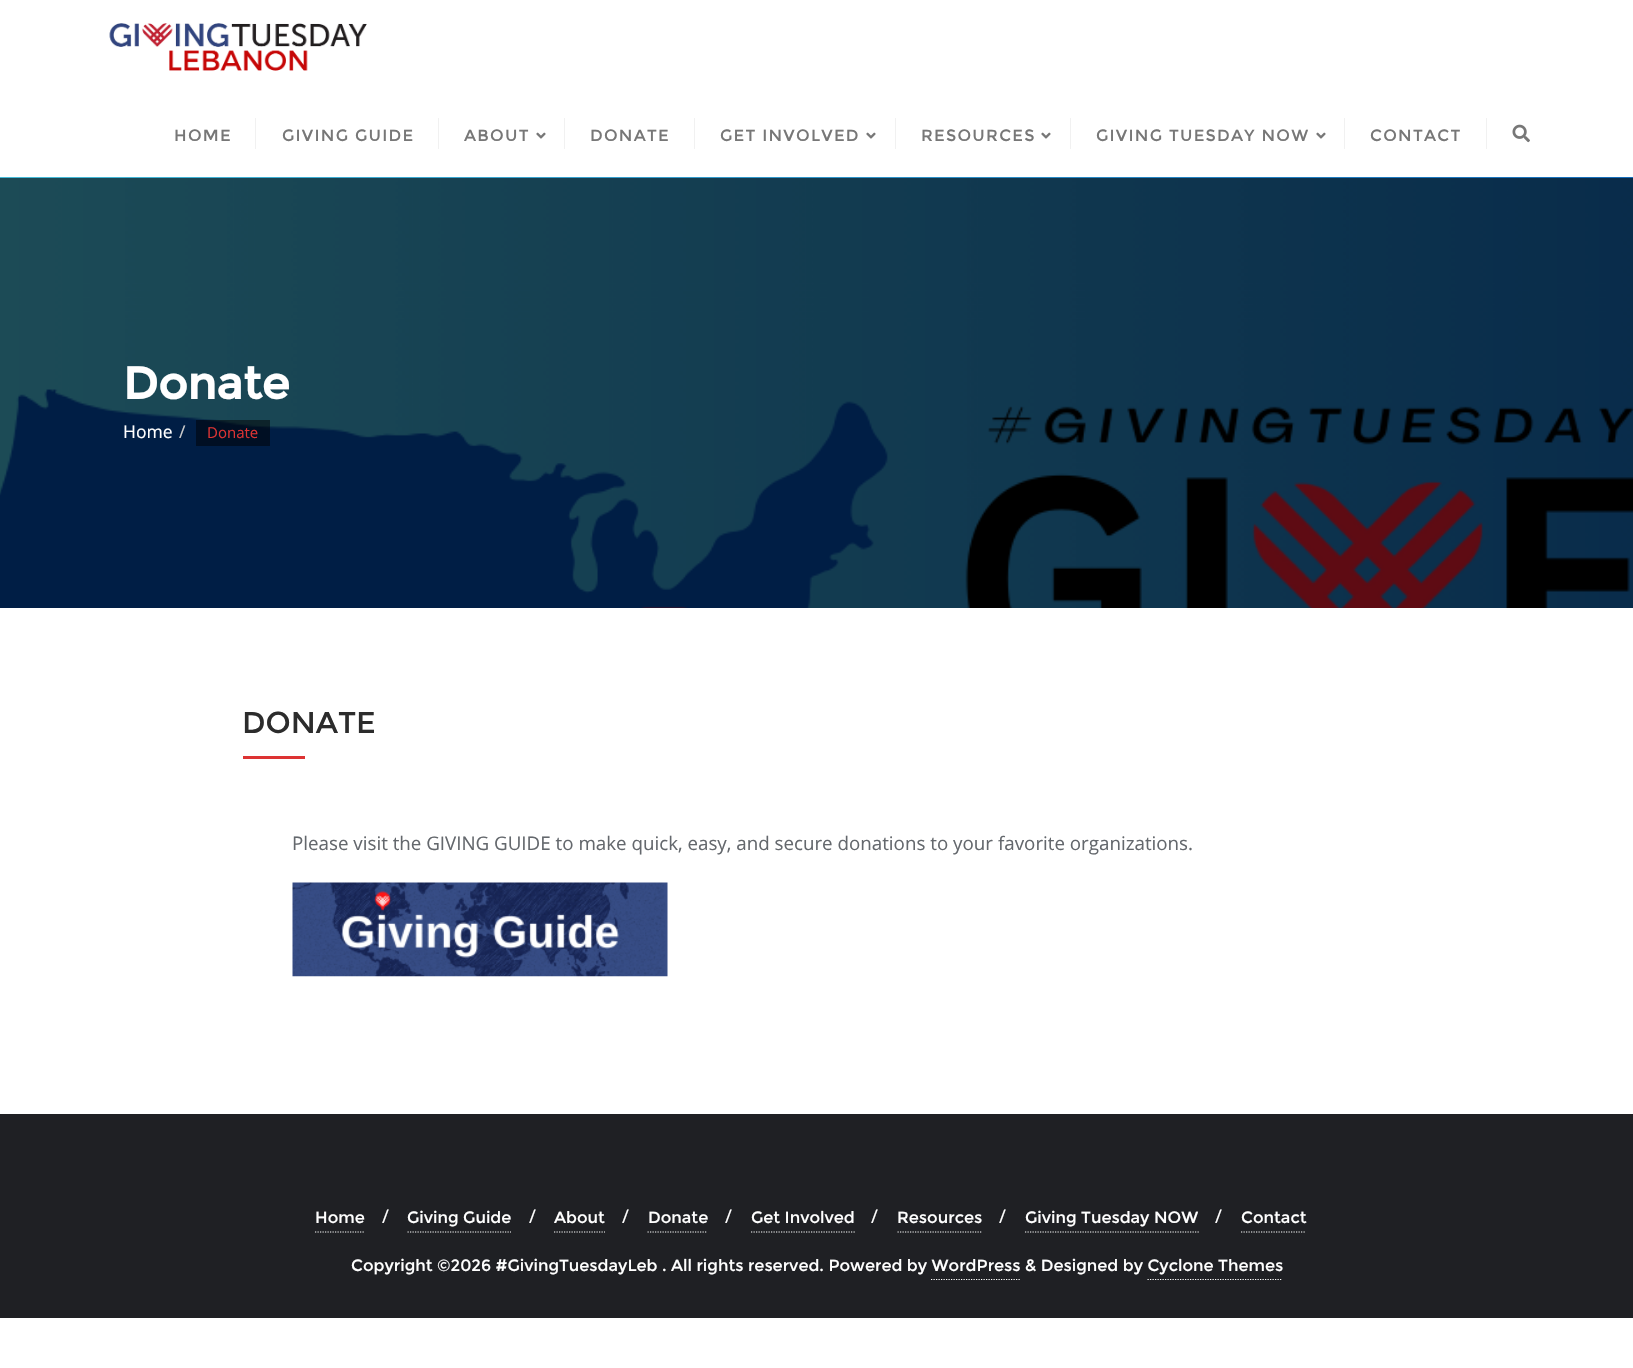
void draw(SkCanvas* canvas) {
    SkPaint paint;
    paint.setAntiAlias(true);
    auto face = [&](const char* family, int weight, float size, bool italic = false) {
        SkFontStyle style(weight, SkFontStyle::kNormal_Width,
            italic ? SkFontStyle::kItalic_Slant : SkFontStyle::kUpright_Slant);
        SkFont result(fontMgr->matchFamilyStyle(family, style), size);
        result.setSubpixel(true);
        return result;
    };
    auto write = [&](const char* s, float x, float y, const SkFont& font, SkColor color) {
        SkPaint ink(SkColor4f::FromColor(color));
        ink.setAntiAlias(true);
        canvas->drawString(s, x, y, font, ink);
    };
    auto writeSpaced = [&](const char* s, float x, float y, const SkFont& font, const SkPaint& ink, float letter, float word) {
        std::vector<SkGlyphID> glyphs(font.countText(s, strlen(s), SkTextEncoding::kUTF8));
        std::vector<float> xs(glyphs.size());
        font.textToGlyphs(s, strlen(s), SkTextEncoding::kUTF8, glyphs);
        font.getXPos(glyphs, xs, x);
        float extra = 0;
        for (size_t i = 0; i < glyphs.size(); i++) {
            xs[i] += extra;
            extra += letter + word * (glyphs[i] == font.unicharToGlyph(' '));
        }
        canvas->drawTextBlob(SkTextBlob::MakeFromPosHGlyphs(glyphs, xs, y, font), 0, 0, ink);
    };
    auto block = [&](float x, float y, float w, float h, SkColor color) {
        SkPaint ink(SkColor4f::FromColor(color));
        ink.setAntiAlias(true);
        canvas->drawRect(SkRect::MakeXYWH(x, y, w, h), ink);
    };
    auto paste = [&](const char* path, float x, float y, float w, float h) {
        auto image = SkImages::DeferredFromEncodedData(SkData::MakeFromFileName(path));
        canvas->drawImageRect(image, SkRect::MakeXYWH(x, y, w, h), SkSamplingOptions());
    };
    canvas->clear(SK_ColorWHITE);
    paste("pic1.png", 109, 23, 258, 48);
    auto kFont1 = face("Montserrat", 400, 16.25f);
    paint.setColor(SkColorSetRGB(119, 119, 119));
    writeSpaced("HOME", 174, 141, kFont1, paint, 1.25f, 0);
    block(255, 118, 1, 31, SkColorSetRGB(241, 241, 241));
    writeSpaced("GIVING GUIDE", 282, 141, kFont1, paint, 1.25f, 0);
    block(438, 118, 1, 31, SkColorSetRGB(241, 241, 241));
    writeSpaced("ABOUT", 464, 141, kFont1, paint, 1.25f, 0);
    paste("pic2.png", 536, 132, 10, 7);
    block(564, 118, 1, 31, SkColorSetRGB(241, 241, 241));
    writeSpaced("DONATE", 590, 141, kFont1, paint, 1.25f, 0);
    block(694, 118, 1, 31, SkColorSetRGB(241, 241, 241));
    writeSpaced("GET INVOLVED", 720, 141, kFont1, paint, 1.25f, 0);
    paste("pic2.png", 866, 132, 10, 7);
    block(895, 118, 1, 31, SkColorSetRGB(241, 241, 241));
    writeSpaced("RESOURCES", 921, 141, kFont1, paint, 1.25f, 0);
    paste("pic2.png", 1041, 132, 10, 7);
    block(1070, 118, 1, 31, SkColorSetRGB(241, 241, 241));
    writeSpaced("GIVING TUESDAY NOW", 1096, 141, kFont1, paint, 1.25f, 0);
    paste("pic2.png", 1316, 132, 10, 7);
    block(1344, 118, 1, 31, SkColorSetRGB(241, 241, 241));
    writeSpaced("CONTACT", 1370, 141, kFont1, paint, 1.25f, 0);
    block(1486, 118, 1, 31, SkColorSetRGB(241, 241, 241));
    paste("pic3.png", 1512, 124, 18, 19);
    paste("pic4.png", 0, 177, 1633, 431);
    auto kFont2 = face("Montserrat", 700, 45);
    write("Donate", 123, 399, kFont2, SK_ColorWHITE);
    auto kFont3 = face("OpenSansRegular", 400, 17.5f);
    write("Home", 123, 438, kFont3, SK_ColorWHITE);
    write("/", 179, 438, kFont3, SkColorSetRGB(204, 204, 204));
    block(196, 420, 74, 26, SkColorSetARGB(128, 0, 0, 0));
    auto kFont4 = face("OpenSansRegular", 400, 15);
    write("Donate", 207, 438, kFont4, SkColorSetRGB(221, 51, 51));
    auto kFont5 = face("Montserrat", 400, 30);
    write("DONATE", 242, 733, kFont5, SkColorSetRGB(44, 44, 44));
    block(243, 756, 62, 3, SkColorSetRGB(221, 51, 51));
    auto kFont6 = face("OpenSansRegular", 400, 18.75f);
    write("Please visit the GIVING GUIDE to make quick, easy, and secure donations to your favorite organizations.", 292, 850, kFont6, SkColorSetRGB(100, 104, 109));
    paste("pic5.png", 292, 882, 376, 95);
    block(0, 1114, 1633, 204, SkColorSetRGB(31, 32, 36));
    paint.setStyle(SkPaint::kStroke_Style);
    paint.setStrokeWidth(1.2f);
    paint.setColor(SK_ColorWHITE);
    paint.setPathEffect(SkDashPathEffect::Make({{1.25f, 1.25f}}, 0));
    canvas->drawPath(SkPathBuilder().moveTo(315, 1232).lineTo(365, 1232).detach(), paint);
    paint.setPathEffect(nullptr);
    write("Home", 315, 1223, kFont1, SK_ColorWHITE);
    write("/", 382, 1223, kFont6, SK_ColorWHITE);
    paint.setPathEffect(SkDashPathEffect::Make({{1.25f, 1.25f}}, 0));
    canvas->drawPath(SkPathBuilder().moveTo(407.5f, 1232).lineTo(511, 1232).detach(), paint);
    paint.setPathEffect(nullptr);
    write("Giving Guide", 407, 1223, kFont1, SK_ColorWHITE);
    write("/", 529, 1223, kFont6, SK_ColorWHITE);
    paint.setPathEffect(SkDashPathEffect::Make({{1.25f, 1.25f}}, 0));
    canvas->drawPath(SkPathBuilder().moveTo(554, 1232).lineTo(605, 1232).detach(), paint);
    paint.setPathEffect(nullptr);
    write("About", 554, 1223, kFont1, SK_ColorWHITE);
    write("/", 622, 1223, kFont6, SK_ColorWHITE);
    paint.setPathEffect(SkDashPathEffect::Make({{1.25f, 1.25f}}, 0));
    canvas->drawPath(SkPathBuilder().moveTo(647.5f, 1232).lineTo(707.5f, 1232).detach(), paint);
    paint.setPathEffect(nullptr);
    write("Donate", 648, 1223, kFont1, SK_ColorWHITE);
    write("/", 725, 1223, kFont6, SK_ColorWHITE);
    paint.setPathEffect(SkDashPathEffect::Make({{1.25f, 1.25f}}, 0));
    canvas->drawPath(SkPathBuilder().moveTo(751, 1232).lineTo(855, 1232).detach(), paint);
    paint.setPathEffect(nullptr);
    write("Get Involved", 751, 1223, kFont1, SK_ColorWHITE);
    write("/", 871, 1223, kFont6, SK_ColorWHITE);
    paint.setPathEffect(SkDashPathEffect::Make({{1.25f, 1.25f}}, 0));
    canvas->drawPath(SkPathBuilder().moveTo(897.5f, 1232).lineTo(982.5f, 1232).detach(), paint);
    paint.setPathEffect(nullptr);
    write("Resources", 897, 1223, kFont1, SK_ColorWHITE);
    write("/", 999, 1223, kFont6, SK_ColorWHITE);
    paint.setPathEffect(SkDashPathEffect::Make({{1.25f, 1.25f}}, 0));
    canvas->drawPath(SkPathBuilder().moveTo(1025, 1232).lineTo(1199, 1232).detach(), paint);
    paint.setPathEffect(nullptr);
    write("Giving Tuesday NOW", 1025, 1223, kFont1, SK_ColorWHITE);
    write("/", 1215, 1223, kFont6, SK_ColorWHITE);
    paint.setPathEffect(SkDashPathEffect::Make({{1.25f, 1.25f}}, 0));
    canvas->drawPath(SkPathBuilder().moveTo(1241, 1232).lineTo(1306, 1232).detach(), paint);
    paint.setPathEffect(nullptr);
    write("Contact", 1241, 1223, kFont1, SK_ColorWHITE);
    write("Copyright ©2026 #GivingTuesdayLeb . All rights reserved. Powered by WordPress & Designed by Cyclone Themes", 351, 1271, kFont1, SK_ColorWHITE);
    paint.setPathEffect(SkDashPathEffect::Make({{1.25f, 1.25f}}, 0));
    canvas->drawPath(SkPathBuilder().moveTo(931, 1279.5f).lineTo(1020, 1279.5f).detach(), paint);
    paint.setPathEffect(nullptr);
    paint.setPathEffect(SkDashPathEffect::Make({{1.25f, 1.25f}}, 0));
    canvas->drawPath(SkPathBuilder().moveTo(1147.5f, 1279.5f).lineTo(1282.5f, 1279.5f).detach(), paint);
    paint.setPathEffect(nullptr);
}
